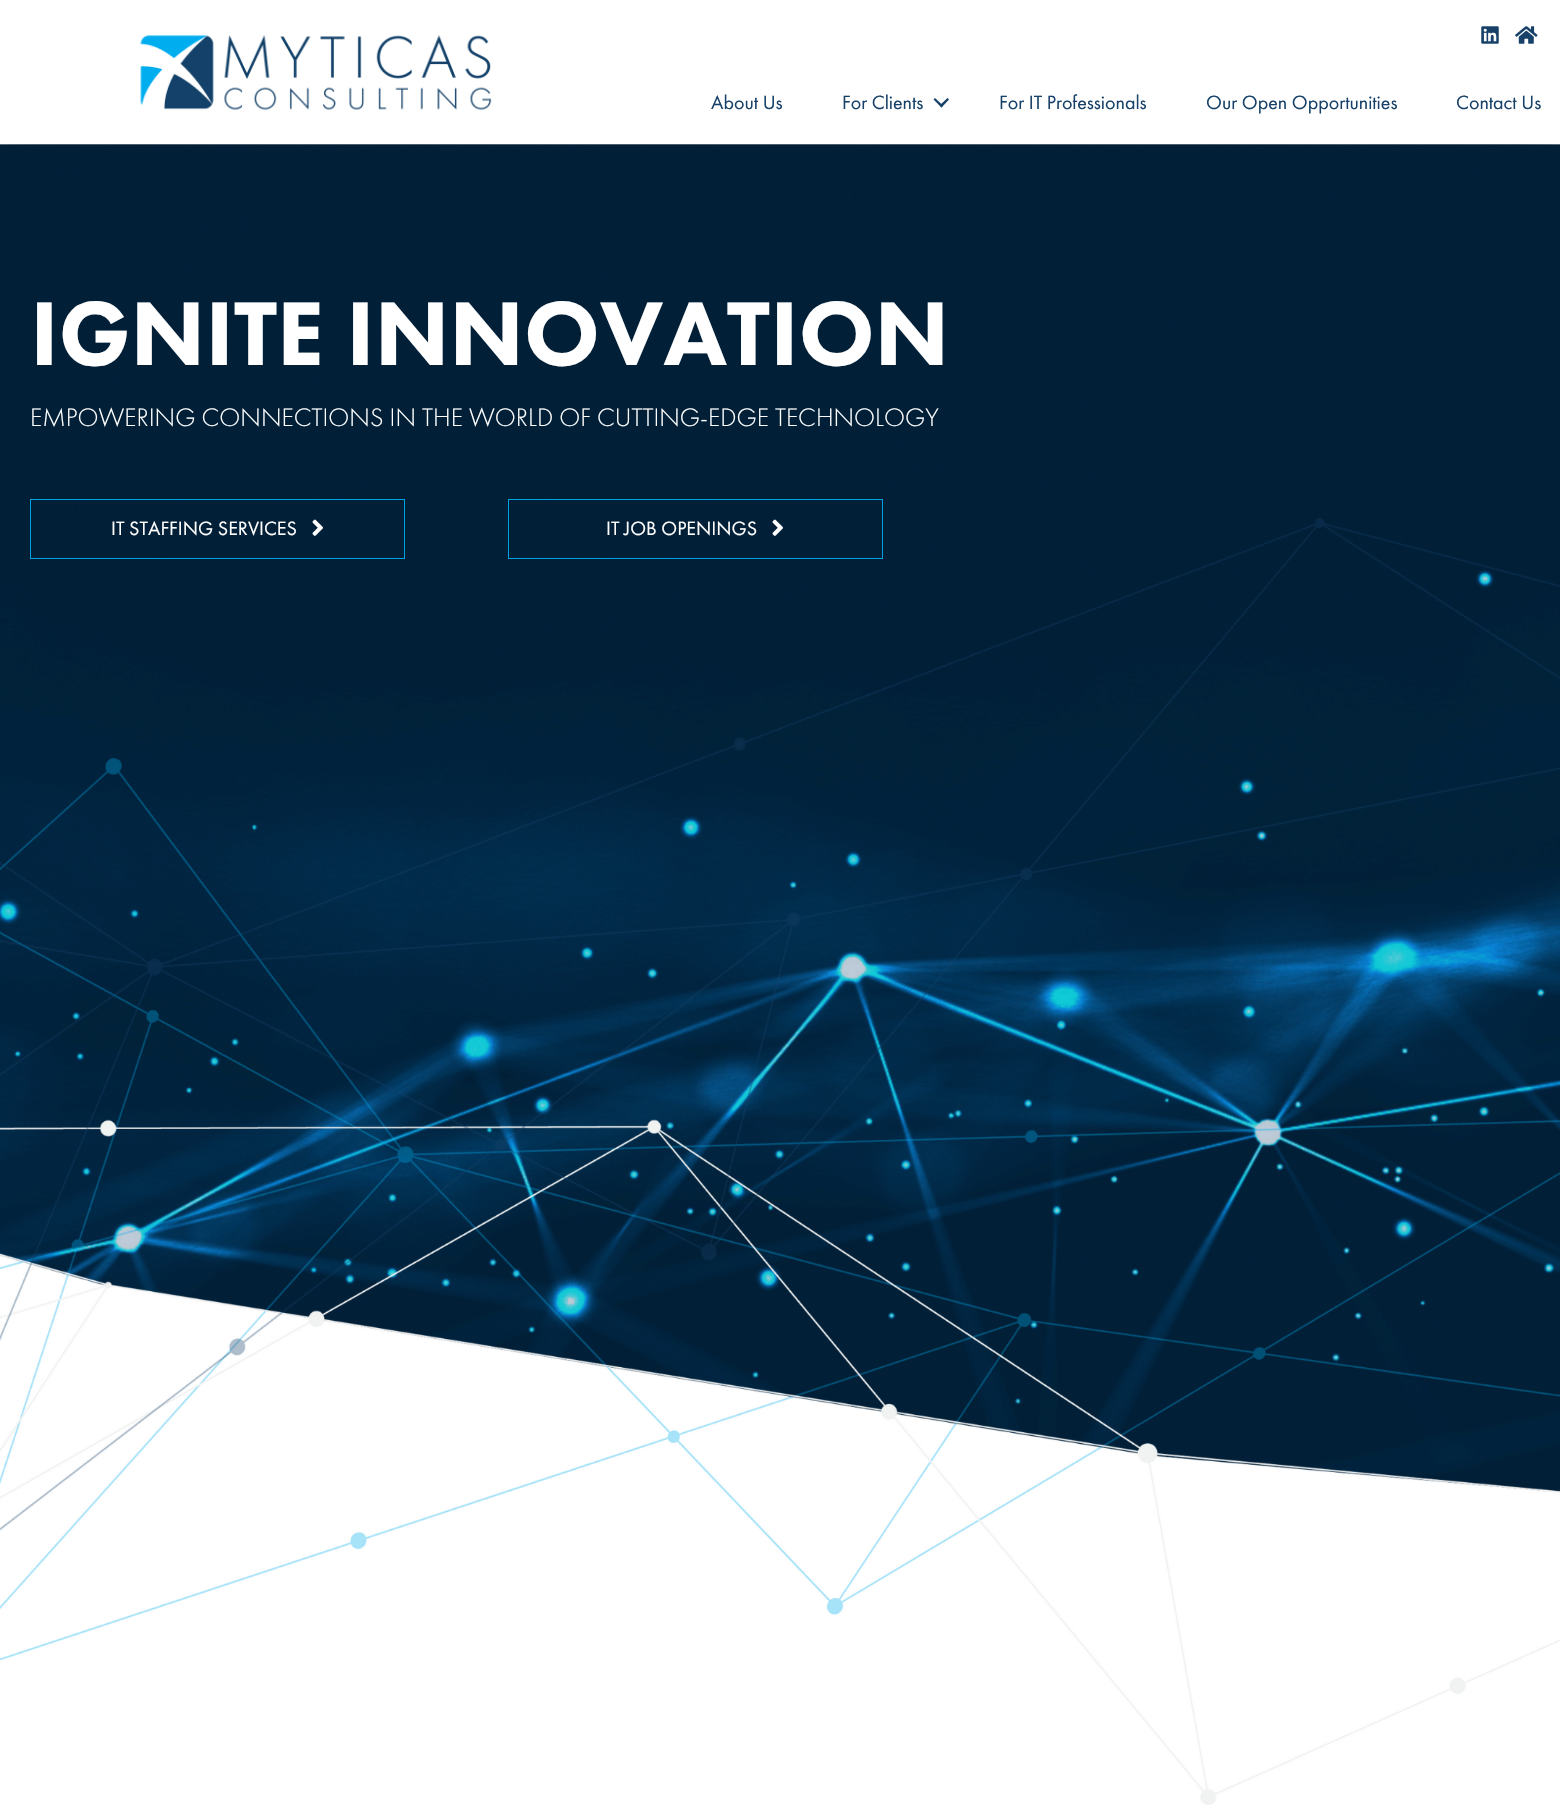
void draw(SkCanvas* canvas) {
    SkPaint paint;
    paint.setAntiAlias(true);
    auto face = [&](const char* family, int weight, float size, bool italic = false) {
        SkFontStyle style(weight, SkFontStyle::kNormal_Width,
            italic ? SkFontStyle::kItalic_Slant : SkFontStyle::kUpright_Slant);
        SkFont result(fontMgr->matchFamilyStyle(family, style), size);
        result.setSubpixel(true);
        return result;
    };
    auto write = [&](const char* s, float x, float y, const SkFont& font, SkColor color) {
        SkPaint ink(SkColor4f::FromColor(color));
        ink.setAntiAlias(true);
        canvas->drawString(s, x, y, font, ink);
    };
    auto block = [&](float x, float y, float w, float h, SkColor color) {
        SkPaint ink(SkColor4f::FromColor(color));
        ink.setAntiAlias(true);
        canvas->drawRect(SkRect::MakeXYWH(x, y, w, h), ink);
    };
    auto paste = [&](const char* path, float x, float y, float w, float h) {
        auto image = SkImages::DeferredFromEncodedData(SkData::MakeFromFileName(path));
        canvas->drawImageRect(image, SkRect::MakeXYWH(x, y, w, h), SkSamplingOptions());
    };
    canvas->clear(SK_ColorWHITE);
    paint.setColor(SkColorSetARGB(166, 0, 0, 0));
    paint.setMaskFilter(SkMaskFilter::MakeBlur(kNormal_SkBlurStyle, 15));
    canvas->drawRect(SkRect::MakeXYWH(11, 15, 1538, 121), paint);
    paint.setMaskFilter(nullptr);
    block(0, 0, 1560, 144, SK_ColorWHITE);
    paste("pic1.png", 140, 35, 352, 75);
    paste("pic2.png", 1481, 26, 18, 18);
    paste("pic3.png", 1515, 26, 23, 18);
    auto kFont1 = face("Futura PT", 400, 20);
    write("About Us", 711, 109, kFont1, SkColorSetRGB(23, 65, 105));
    write("For Clients", 842, 109, kFont1, SkColorSetRGB(23, 65, 105));
    paint.setColor(SkColorSetRGB(23, 65, 105));
    canvas->drawPath(SkPathBuilder().moveTo(947.5f, 98).lineTo(949, 99.5f).lineTo(941.5f, 107.5f).lineTo(939.5f, 105.5f).close().detach(), paint);
    canvas->drawPath(SkPathBuilder().moveTo(935, 98).lineTo(943, 105.5f).lineTo(941.5f, 107.5f).lineTo(933.5f, 99.5f).close().detach(), paint);
    write("For IT Professionals", 999, 109, kFont1, SkColorSetRGB(23, 65, 105));
    write("Our Open Opportunities", 1206, 109, kFont1, SkColorSetRGB(23, 65, 105));
    write("Contact Us", 1456, 109, kFont1, SkColorSetRGB(23, 65, 105));
    paste("pic4.png", 0, 144, 1560, 1661);
    auto kFont2 = face("Futura PT", 900, 93.75f);
    write("IGNITE INNOVATION", 30, 365, kFont2, SK_ColorWHITE);
    auto kFont3 = face("Futura PT", 300, 26.25f);
    write("EMPOWERING CONNECTIONS IN THE WORLD OF CUTTING-EDGE TECHNOLOGY", 30, 426, kFont3, SK_ColorWHITE);
    paint.setStyle(SkPaint::kStroke_Style);
    paint.setStrokeWidth(1);
    paint.setColor(SkColorSetRGB(0, 162, 227));
    canvas->drawRect(SkRect::MakeXYWH(30.5f, 499.5f, 374, 59), paint);
    write("IT STAFFING SERVICES", 111, 535, kFont1, SK_ColorWHITE);
    paste("pic5.png", 312, 519, 11, 17);
    canvas->drawRect(SkRect::MakeXYWH(508.5f, 499.5f, 374, 59), paint);
    write("IT JOB OPENINGS", 606, 535, kFont1, SK_ColorWHITE);
    paste("pic6.png", 772, 519, 11, 17);
}
